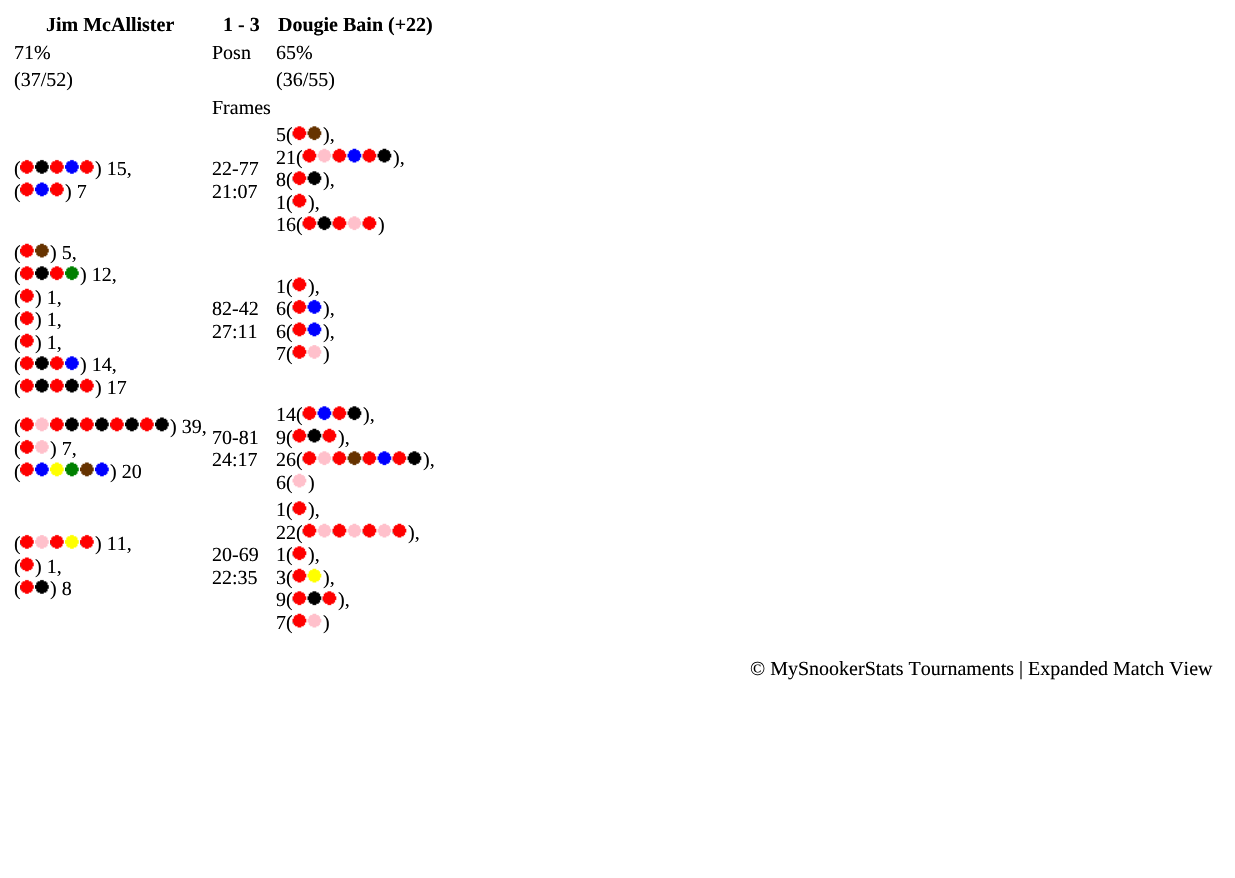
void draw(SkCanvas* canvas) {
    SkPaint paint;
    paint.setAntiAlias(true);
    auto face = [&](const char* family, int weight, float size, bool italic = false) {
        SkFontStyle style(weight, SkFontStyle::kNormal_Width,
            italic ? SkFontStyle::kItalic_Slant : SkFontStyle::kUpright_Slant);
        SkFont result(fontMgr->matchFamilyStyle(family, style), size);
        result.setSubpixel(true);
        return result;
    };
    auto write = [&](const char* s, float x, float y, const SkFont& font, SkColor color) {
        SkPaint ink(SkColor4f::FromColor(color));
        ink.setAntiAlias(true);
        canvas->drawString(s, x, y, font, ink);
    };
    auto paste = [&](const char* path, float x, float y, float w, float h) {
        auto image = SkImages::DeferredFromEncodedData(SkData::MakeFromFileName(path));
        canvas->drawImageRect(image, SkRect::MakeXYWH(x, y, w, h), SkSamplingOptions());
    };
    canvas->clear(SK_ColorWHITE);
    auto kFont1 = face("Liberation Serif", 700, 20);
    write("Jim McAllister", 46, 31, kFont1, SK_ColorBLACK);
    write("1 - 3", 223, 31, kFont1, SK_ColorBLACK);
    write("Dougie Bain (+22)", 278, 31, kFont1, SK_ColorBLACK);
    auto kFont2 = face("Liberation Serif", 400, 20);
    write("71%", 14, 59, kFont2, SK_ColorBLACK);
    write("Posn", 212, 59, kFont2, SK_ColorBLACK);
    write("65%", 276, 59, kFont2, SK_ColorBLACK);
    write("(37/52)", 14, 86, kFont2, SK_ColorBLACK);
    write("(36/55)", 276, 86, kFont2, SK_ColorBLACK);
    write("Frames", 212, 114, kFont2, SK_ColorBLACK);
    write("(", 14, 175, kFont2, SK_ColorBLACK);
    paste("pic1.png", 20, 159, 14, 15);
    paste("pic2.png", 35, 159, 14, 15);
    paste("pic3.png", 50, 159, 14, 15);
    paste("pic4.png", 65, 159, 14, 15);
    paste("pic3.png", 80, 159, 14, 15);
    write(") 15,", 95, 175, kFont2, SK_ColorBLACK);
    write("(", 14, 198, kFont2, SK_ColorBLACK);
    paste("pic5.png", 20, 182, 14, 15);
    paste("pic6.png", 35, 182, 14, 15);
    paste("pic7.png", 50, 182, 14, 15);
    write(") 7", 65, 198, kFont2, SK_ColorBLACK);
    write("22-77", 212, 175, kFont2, SK_ColorBLACK);
    write("21:07", 212, 198, kFont2, SK_ColorBLACK);
    write("5(", 276, 141, kFont2, SK_ColorBLACK);
    paste("pic8.png", 292, 126, 15, 15);
    paste("pic9.png", 307, 126, 15, 15);
    write("),", 323, 141, kFont2, SK_ColorBLACK);
    write("21(", 276, 164, kFont2, SK_ColorBLACK);
    paste("pic10.png", 302, 148, 15, 15);
    paste("pic11.png", 317, 148, 15, 15);
    paste("pic10.png", 332, 148, 15, 15);
    paste("pic12.png", 347, 148, 15, 15);
    paste("pic13.png", 362, 148, 15, 15);
    paste("pic14.png", 377, 148, 15, 15);
    write("),", 393, 164, kFont2, SK_ColorBLACK);
    write("8(", 276, 186, kFont2, SK_ColorBLACK);
    paste("pic8.png", 292, 171, 15, 15);
    paste("pic15.png", 307, 171, 15, 15);
    write("),", 323, 186, kFont2, SK_ColorBLACK);
    write("1(", 276, 209, kFont2, SK_ColorBLACK);
    paste("pic13.png", 292, 193, 15, 15);
    write("),", 308, 209, kFont2, SK_ColorBLACK);
    write("16(", 276, 231, kFont2, SK_ColorBLACK);
    paste("pic16.png", 302, 216, 15, 15);
    paste("pic15.png", 317, 216, 15, 15);
    paste("pic16.png", 332, 216, 15, 15);
    paste("pic17.png", 347, 216, 15, 15);
    paste("pic8.png", 362, 216, 15, 15);
    write(")", 378, 231, kFont2, SK_ColorBLACK);
    write("(", 14, 259, kFont2, SK_ColorBLACK);
    paste("pic18.png", 20, 243, 14, 15);
    paste("pic19.png", 35, 243, 14, 15);
    write(") 5,", 50, 259, kFont2, SK_ColorBLACK);
    write("(", 14, 281, kFont2, SK_ColorBLACK);
    paste("pic20.png", 20, 266, 14, 15);
    paste("pic21.png", 35, 266, 14, 15);
    paste("pic22.png", 50, 266, 14, 15);
    paste("pic23.png", 65, 266, 14, 15);
    write(") 12,", 80, 281, kFont2, SK_ColorBLACK);
    write("(", 14, 304, kFont2, SK_ColorBLACK);
    paste("pic24.png", 20, 288, 14, 15);
    write(") 1,", 35, 304, kFont2, SK_ColorBLACK);
    write("(", 14, 326, kFont2, SK_ColorBLACK);
    paste("pic20.png", 20, 311, 14, 15);
    write(") 1,", 35, 326, kFont2, SK_ColorBLACK);
    write("(", 14, 349, kFont2, SK_ColorBLACK);
    paste("pic18.png", 20, 333, 14, 15);
    write(") 1,", 35, 349, kFont2, SK_ColorBLACK);
    write("(", 14, 371, kFont2, SK_ColorBLACK);
    paste("pic20.png", 20, 356, 14, 15);
    paste("pic21.png", 35, 356, 14, 15);
    paste("pic22.png", 50, 356, 14, 15);
    paste("pic25.png", 65, 356, 14, 15);
    write(") 14,", 80, 371, kFont2, SK_ColorBLACK);
    write("(", 14, 394, kFont2, SK_ColorBLACK);
    paste("pic18.png", 20, 378, 14, 15);
    paste("pic26.png", 35, 378, 14, 15);
    paste("pic27.png", 50, 378, 14, 15);
    paste("pic28.png", 65, 378, 14, 15);
    paste("pic27.png", 80, 378, 14, 15);
    write(") 17", 95, 394, kFont2, SK_ColorBLACK);
    write("82-42", 212, 315, kFont2, SK_ColorBLACK);
    write("27:11", 212, 338, kFont2, SK_ColorBLACK);
    write("1(", 276, 293, kFont2, SK_ColorBLACK);
    paste("pic29.png", 292, 277, 15, 15);
    write("),", 308, 293, kFont2, SK_ColorBLACK);
    write("6(", 276, 315, kFont2, SK_ColorBLACK);
    paste("pic30.png", 292, 299, 15, 15);
    paste("pic31.png", 307, 299, 15, 15);
    write("),", 323, 315, kFont2, SK_ColorBLACK);
    write("6(", 276, 338, kFont2, SK_ColorBLACK);
    paste("pic29.png", 292, 322, 15, 15);
    paste("pic32.png", 307, 322, 15, 15);
    write("),", 323, 338, kFont2, SK_ColorBLACK);
    write("7(", 276, 360, kFont2, SK_ColorBLACK);
    paste("pic30.png", 292, 344, 15, 15);
    paste("pic33.png", 307, 345, 15, 14);
    write(")", 323, 360, kFont2, SK_ColorBLACK);
    write("(", 14, 433, kFont2, SK_ColorBLACK);
    paste("pic5.png", 20, 417, 14, 15);
    paste("pic34.png", 35, 417, 14, 15);
    paste("pic7.png", 50, 417, 14, 15);
    paste("pic35.png", 65, 417, 14, 15);
    paste("pic7.png", 80, 417, 14, 15);
    paste("pic35.png", 95, 417, 14, 15);
    paste("pic7.png", 110, 417, 14, 15);
    paste("pic35.png", 125, 417, 14, 15);
    paste("pic7.png", 140, 417, 14, 15);
    paste("pic35.png", 155, 417, 14, 15);
    write(") 39,", 170, 433, kFont2, SK_ColorBLACK);
    write("(", 14, 455, kFont2, SK_ColorBLACK);
    paste("pic1.png", 20, 439, 14, 15);
    paste("pic36.png", 35, 440, 14, 14);
    write(") 7,", 50, 455, kFont2, SK_ColorBLACK);
    write("(", 14, 478, kFont2, SK_ColorBLACK);
    paste("pic5.png", 20, 462, 14, 15);
    paste("pic6.png", 35, 462, 14, 15);
    paste("pic37.png", 50, 462, 14, 15);
    paste("pic38.png", 65, 462, 14, 15);
    paste("pic39.png", 80, 462, 14, 15);
    paste("pic40.png", 95, 462, 14, 15);
    write(") 20", 110, 478, kFont2, SK_ColorBLACK);
    write("70-81", 212, 444, kFont2, SK_ColorBLACK);
    write("24:17", 212, 466, kFont2, SK_ColorBLACK);
    write("14(", 276, 421, kFont2, SK_ColorBLACK);
    paste("pic16.png", 302, 406, 15, 15);
    paste("pic41.png", 317, 406, 15, 15);
    paste("pic16.png", 332, 406, 15, 15);
    paste("pic42.png", 347, 406, 15, 15);
    write("),", 363, 421, kFont2, SK_ColorBLACK);
    write("9(", 276, 444, kFont2, SK_ColorBLACK);
    paste("pic13.png", 292, 428, 15, 15);
    paste("pic43.png", 307, 428, 15, 15);
    paste("pic10.png", 322, 428, 15, 15);
    write("),", 338, 444, kFont2, SK_ColorBLACK);
    write("26(", 276, 466, kFont2, SK_ColorBLACK);
    paste("pic16.png", 302, 451, 15, 15);
    paste("pic44.png", 317, 451, 15, 15);
    paste("pic16.png", 332, 451, 15, 15);
    paste("pic45.png", 347, 451, 15, 15);
    paste("pic8.png", 362, 451, 15, 15);
    paste("pic46.png", 377, 451, 15, 15);
    paste("pic8.png", 392, 451, 15, 15);
    paste("pic42.png", 407, 451, 15, 15);
    write("),", 423, 466, kFont2, SK_ColorBLACK);
    write("6(", 276, 489, kFont2, SK_ColorBLACK);
    paste("pic47.png", 292, 473, 15, 15);
    write(")", 308, 489, kFont2, SK_ColorBLACK);
    write("(", 14, 550, kFont2, SK_ColorBLACK);
    paste("pic1.png", 20, 534, 14, 15);
    paste("pic36.png", 35, 535, 14, 14);
    paste("pic3.png", 50, 534, 14, 15);
    paste("pic48.png", 65, 534, 14, 15);
    paste("pic3.png", 80, 534, 14, 15);
    write(") 11,", 95, 550, kFont2, SK_ColorBLACK);
    write("(", 14, 573, kFont2, SK_ColorBLACK);
    paste("pic5.png", 20, 557, 14, 15);
    write(") 1,", 35, 573, kFont2, SK_ColorBLACK);
    write("(", 14, 595, kFont2, SK_ColorBLACK);
    paste("pic49.png", 20, 579, 14, 15);
    paste("pic50.png", 35, 579, 14, 15);
    write(") 8", 50, 595, kFont2, SK_ColorBLACK);
    write("20-69", 212, 561, kFont2, SK_ColorBLACK);
    write("22:35", 212, 584, kFont2, SK_ColorBLACK);
    write("1(", 276, 516, kFont2, SK_ColorBLACK);
    paste("pic8.png", 292, 501, 15, 15);
    write("),", 308, 516, kFont2, SK_ColorBLACK);
    write("22(", 276, 539, kFont2, SK_ColorBLACK);
    paste("pic10.png", 302, 523, 15, 15);
    paste("pic11.png", 317, 523, 15, 15);
    paste("pic10.png", 332, 523, 15, 15);
    paste("pic47.png", 347, 523, 15, 15);
    paste("pic13.png", 362, 523, 15, 15);
    paste("pic47.png", 377, 523, 15, 15);
    paste("pic13.png", 392, 523, 15, 15);
    write("),", 408, 539, kFont2, SK_ColorBLACK);
    write("1(", 276, 561, kFont2, SK_ColorBLACK);
    paste("pic8.png", 292, 546, 15, 15);
    write("),", 308, 561, kFont2, SK_ColorBLACK);
    write("3(", 276, 584, kFont2, SK_ColorBLACK);
    paste("pic13.png", 292, 568, 15, 15);
    paste("pic51.png", 307, 568, 15, 15);
    write("),", 323, 584, kFont2, SK_ColorBLACK);
    write("9(", 276, 606, kFont2, SK_ColorBLACK);
    paste("pic8.png", 292, 591, 15, 15);
    paste("pic15.png", 307, 591, 15, 15);
    paste("pic16.png", 322, 591, 15, 15);
    write("),", 338, 606, kFont2, SK_ColorBLACK);
    write("7(", 276, 629, kFont2, SK_ColorBLACK);
    paste("pic13.png", 292, 613, 15, 15);
    paste("pic11.png", 307, 613, 15, 15);
    write(")", 323, 629, kFont2, SK_ColorBLACK);
    write("© MySnookerStats Tournaments | Expanded Match View", 750, 675, kFont2, SK_ColorBLACK);
}
